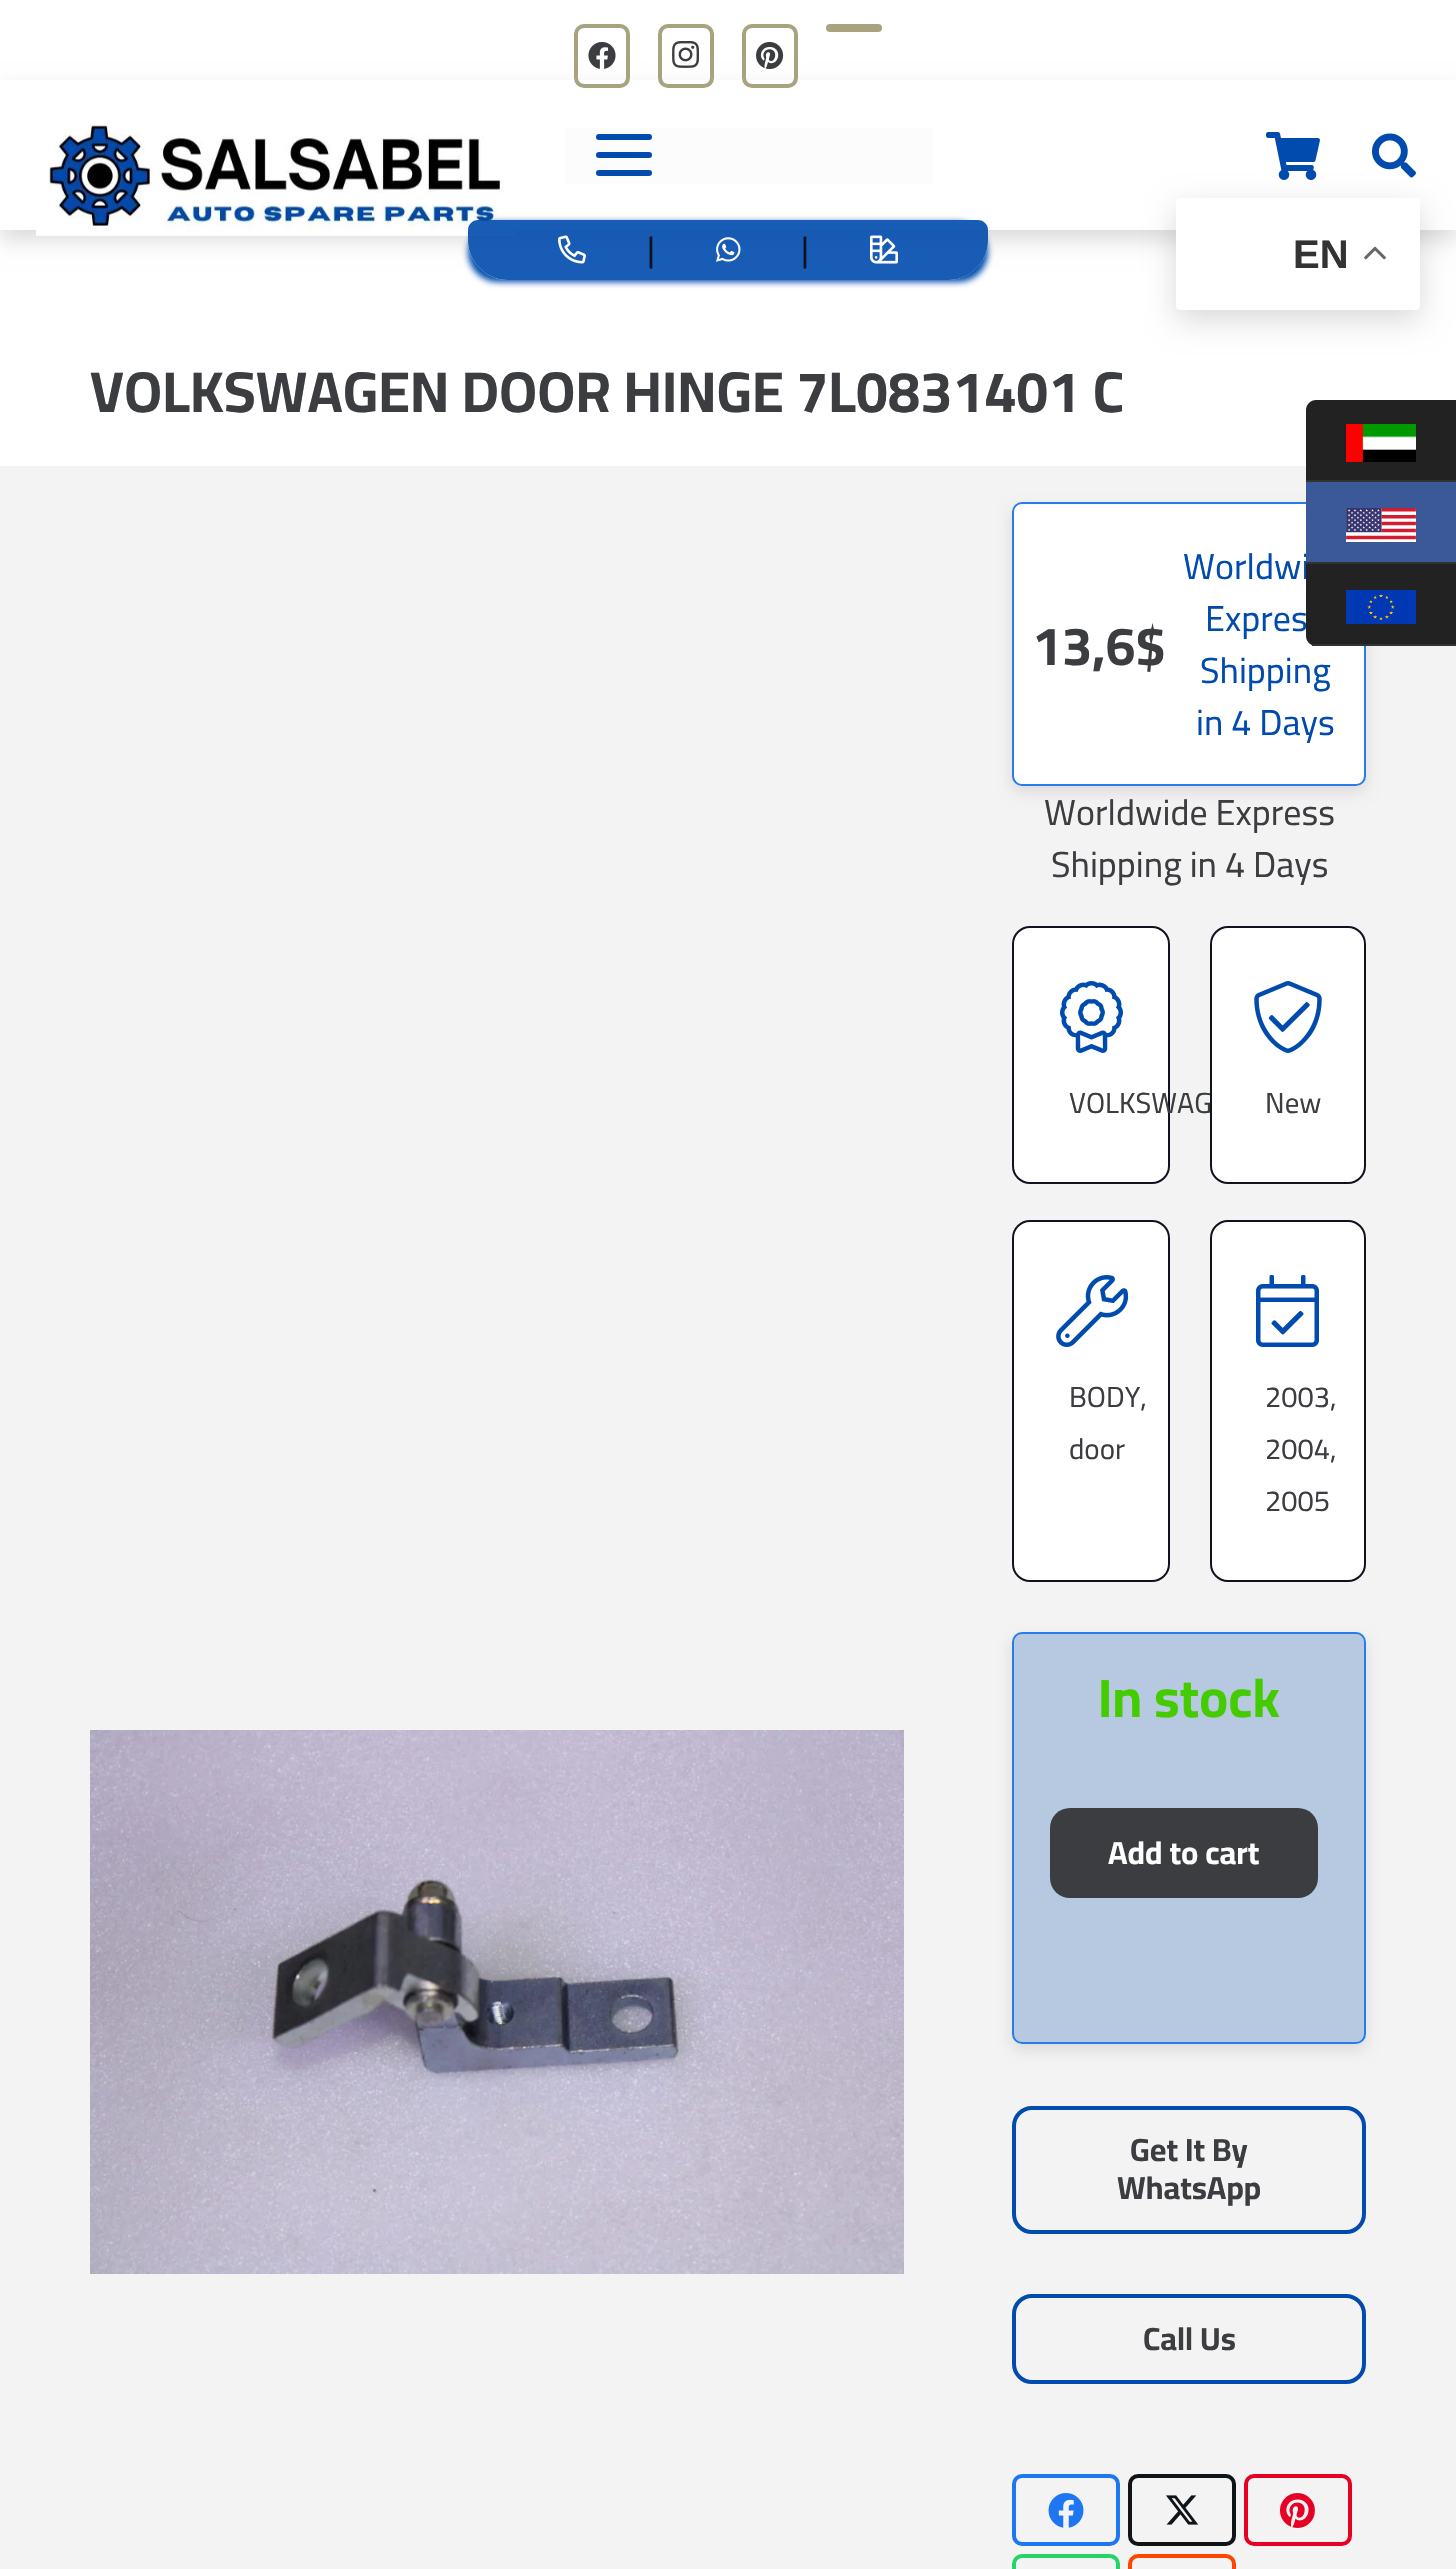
void draw(SkCanvas* canvas) {
    SkPaint paint;
    paint.setAntiAlias(true);
    auto face = [&](const char* family, int weight, float size, bool italic = false) {
        SkFontStyle style(weight, SkFontStyle::kNormal_Width,
            italic ? SkFontStyle::kItalic_Slant : SkFontStyle::kUpright_Slant);
        SkFont result(fontMgr->matchFamilyStyle(family, style), size);
        result.setSubpixel(true);
        return result;
    };
    auto write = [&](const char* s, float x, float y, const SkFont& font, SkColor color) {
        SkPaint ink(SkColor4f::FromColor(color));
        ink.setAntiAlias(true);
        canvas->drawString(s, x, y, font, ink);
    };
    auto block = [&](float x, float y, float w, float h, SkColor color) {
        SkPaint ink(SkColor4f::FromColor(color));
        ink.setAntiAlias(true);
        canvas->drawRect(SkRect::MakeXYWH(x, y, w, h), ink);
    };
    auto card = [&](float x, float y, float w, float h, float radius, SkColor color) {
        SkPaint ink(SkColor4f::FromColor(color));
        ink.setAntiAlias(true);
        canvas->drawRoundRect(SkRect::MakeXYWH(x, y, w, h), radius, radius, ink);
    };
    auto paste = [&](const char* path, float x, float y, float w, float h) {
        auto image = SkImages::DeferredFromEncodedData(SkData::MakeFromFileName(path));
        canvas->drawImageRect(image, SkRect::MakeXYWH(x, y, w, h), SkSamplingOptions());
    };
    canvas->clear(SK_ColorWHITE);
    canvas->save();
    canvas->clipPath(SkPathBuilder(SkPathFillType::kEvenOdd).moveTo(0, 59).lineTo(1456, 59).lineTo(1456, 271).lineTo(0, 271).close().moveTo(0, 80).lineTo(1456, 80).lineTo(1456, 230).lineTo(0, 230).close().detach(), true);
    paint.setColor(SkColorSetARGB(36, 0, 0, 0));
    paint.setMaskFilter(SkMaskFilter::MakeBlur(kNormal_SkBlurStyle, 10));
    canvas->drawRect(SkRect::MakeXYWH(0, 90, 1456, 150), paint);
    paint.setMaskFilter(nullptr);
    canvas->restore();
    paint.setStyle(SkPaint::kStroke_Style);
    paint.setStrokeWidth(4);
    paint.setColor(SkColorSetRGB(167, 163, 126));
    canvas->drawRoundRect(SkRect::MakeXYWH(576, 26, 52, 60), 8, 8, paint);
    paste("pic1.png", 588, 42, 28, 27);
    canvas->drawRoundRect(SkRect::MakeXYWH(660, 26, 52, 60), 8, 8, paint);
    paste("pic2.png", 672, 41, 27, 27);
    canvas->drawRoundRect(SkRect::MakeXYWH(744, 26, 52, 60), 8, 8, paint);
    paste("pic3.png", 756, 41, 28, 29);
    card(826, 24, 56, 8, 4, SkColorSetRGB(167, 163, 126));
    paste("pic4.png", 36, 125, 480, 111);
    block(566, 128, 368, 56, SkColorSetRGB(252, 252, 252));
    card(596, 152, 56, 6, 3, SkColorSetRGB(0, 75, 173));
    card(596, 134, 56, 6, 3, SkColorSetRGB(0, 75, 173));
    card(596, 170, 56, 6, 3, SkColorSetRGB(0, 75, 173));
    paste("pic5.png", 1266, 132, 54, 48);
    paste("pic6.png", 1372, 133, 44, 45);
    canvas->save();
    canvas->clipPath(SkPathBuilder(SkPathFillType::kEvenOdd).moveTo(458, 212).lineTo(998, 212).lineTo(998, 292).lineTo(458, 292).close().moveTo(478, 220).lineTo(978, 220).cubicTo(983.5f, 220, 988, 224.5f, 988, 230).lineTo(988, 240).cubicTo(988, 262, 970, 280, 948, 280).lineTo(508, 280).cubicTo(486, 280, 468, 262, 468, 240).lineTo(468, 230).cubicTo(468, 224.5f, 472.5f, 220, 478, 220).close().detach(), true);
    paint.setStyle(SkPaint::kFill_Style);
    paint.setColor(SkColorSetRGB(0, 75, 173));
    paint.setMaskFilter(SkMaskFilter::MakeBlur(kNormal_SkBlurStyle, 3));
    canvas->drawRoundRect(SkRect::MakeXYWH(468, 222, 520, 60), 40, 40, paint);
    paint.setMaskFilter(nullptr);
    canvas->restore();
    paint.setColor(SkColorSetARGB(230, 0, 74, 173));
    canvas->drawPath(SkPathBuilder().moveTo(478, 220).lineTo(978, 220).cubicTo(983.5f, 220, 988, 224.5f, 988, 230).lineTo(988, 240).cubicTo(988, 262, 970, 280, 948, 280).lineTo(508, 280).cubicTo(486, 280, 468, 262, 468, 240).lineTo(468, 230).cubicTo(468, 224.5f, 472.5f, 220, 478, 220).close().detach(), paint);
    paste("pic7.png", 558, 235, 28, 29);
    auto kFont1 = face("Cairo", 400, 34);
    write("|", 647, 261, kFont1, SkColorSetRGB(15, 19, 31));
    paste("pic8.png", 716, 237, 25, 25);
    write("|", 801, 261, kFont1, SkColorSetRGB(15, 19, 31));
    paste("pic9.png", 870, 235, 28, 29);
    paint.setColor(SkColorSetARGB(38, 0, 0, 0));
    paint.setMaskFilter(SkMaskFilter::MakeBlur(kNormal_SkBlurStyle, 15));
    canvas->drawRoundRect(SkRect::MakeXYWH(1176, 208, 244, 112), 4, 4, paint);
    paint.setMaskFilter(nullptr);
    card(1176, 198, 244, 112, 4, SK_ColorWHITE);
    auto kFont2 = face("Liberation Sans", 700, 40);
    write("EN", 1293, 268, kFont2, SkColorSetRGB(51, 51, 51));
    paste("pic10.png", 1364, 246, 22, 14);
    auto kFont3 = face("Cairo", 700, 57.6f);
    write("VOLKSWAGEN DOOR HINGE 7L0831401 C", 90, 412, kFont3, SkColorSetRGB(59, 61, 64));
    block(0, 466, 1456, 2103, SkColorSetRGB(243, 243, 243));
    paste("pic11.png", 90, 1730, 814, 544);
    paint.setColor(SkColorSetARGB(26, 0, 0, 0));
    paint.setMaskFilter(SkMaskFilter::MakeBlur(kNormal_SkBlurStyle, 7));
    canvas->drawRoundRect(SkRect::MakeXYWH(1012, 508, 354, 284), 10, 10, paint);
    paint.setMaskFilter(nullptr);
    paint.setColor(SK_ColorWHITE);
    canvas->drawRoundRect(SkRect::MakeXYWH(1013, 503, 352, 282), 9, 9, paint);
    paint.setStyle(SkPaint::kStroke_Style);
    paint.setStrokeWidth(2);
    paint.setColor(SkColorSetRGB(39, 124, 234));
    canvas->drawRoundRect(SkRect::MakeXYWH(1013, 503, 352, 282), 9, 9, paint);
    auto kFont4 = face("Cairo", 700, 54);
    write("13,6$", 1032, 665, kFont4, SkColorSetRGB(59, 61, 64));
    auto kFont5 = face("Cairo", 400, 36);
    write("Worldwi", 1183, 579, kFont5, SkColorSetRGB(0, 75, 173));
    write("Expres", 1205, 631, kFont5, SkColorSetRGB(0, 75, 173));
    write("Shipping", 1200, 683, kFont5, SkColorSetRGB(0, 75, 173));
    write("in 4 Days", 1196, 735, kFont5, SkColorSetRGB(0, 75, 173));
    write("Worldwide Express", 1044, 825, kFont5, SkColorSetRGB(59, 61, 64));
    write("Shipping in 4 Days", 1051, 877, kFont5, SkColorSetRGB(59, 61, 64));
    paint.setStyle(SkPaint::kFill_Style);
    paint.setColor(SK_ColorWHITE);
    canvas->drawRoundRect(SkRect::MakeXYWH(1013, 927, 156, 256), 17, 17, paint);
    paint.setStyle(SkPaint::kStroke_Style);
    paint.setColor(SkColorSetRGB(15, 19, 31));
    canvas->drawRoundRect(SkRect::MakeXYWH(1013, 927, 156, 256), 17, 17, paint);
    paste("pic12.png", 1060, 981, 63, 72);
    auto kFont6 = face("Cairo", 400, 29);
    write("VOLKSWAG", 1069, 1113, kFont6, SkColorSetRGB(59, 61, 64));
    paint.setStyle(SkPaint::kFill_Style);
    paint.setColor(SK_ColorWHITE);
    canvas->drawRoundRect(SkRect::MakeXYWH(1211, 927, 154, 256), 17, 17, paint);
    paint.setStyle(SkPaint::kStroke_Style);
    paint.setColor(SkColorSetRGB(15, 19, 31));
    canvas->drawRoundRect(SkRect::MakeXYWH(1211, 927, 154, 256), 17, 17, paint);
    paste("pic13.png", 1254, 981, 68, 72);
    write("New", 1265, 1113, kFont6, SkColorSetRGB(59, 61, 64));
    paint.setStyle(SkPaint::kFill_Style);
    paint.setColor(SK_ColorWHITE);
    canvas->drawRoundRect(SkRect::MakeXYWH(1013, 1221, 156, 360), 17, 17, paint);
    paint.setStyle(SkPaint::kStroke_Style);
    paint.setColor(SkColorSetRGB(15, 19, 31));
    canvas->drawRoundRect(SkRect::MakeXYWH(1013, 1221, 156, 360), 17, 17, paint);
    paste("pic14.png", 1056, 1275, 73, 72);
    write("BODY,", 1069, 1407, kFont6, SkColorSetRGB(59, 61, 64));
    write("door", 1069, 1459, kFont6, SkColorSetRGB(59, 61, 64));
    paint.setStyle(SkPaint::kFill_Style);
    paint.setColor(SK_ColorWHITE);
    canvas->drawRoundRect(SkRect::MakeXYWH(1211, 1221, 154, 360), 17, 17, paint);
    paint.setStyle(SkPaint::kStroke_Style);
    paint.setColor(SkColorSetRGB(15, 19, 31));
    canvas->drawRoundRect(SkRect::MakeXYWH(1211, 1221, 154, 360), 17, 17, paint);
    paste("pic15.png", 1256, 1275, 63, 72);
    write("2003,", 1265, 1407, kFont6, SkColorSetRGB(59, 61, 64));
    write("2004,", 1265, 1459, kFont6, SkColorSetRGB(59, 61, 64));
    write("2005", 1265, 1511, kFont6, SkColorSetRGB(59, 61, 64));
    canvas->save();
    canvas->clipPath(SkPathBuilder(SkPathFillType::kEvenOdd).moveTo(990, 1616).lineTo(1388, 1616).lineTo(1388, 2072).lineTo(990, 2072).close().moveTo(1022, 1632).lineTo(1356, 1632).cubicTo(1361.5f, 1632, 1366, 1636.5f, 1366, 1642).lineTo(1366, 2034).cubicTo(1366, 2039.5f, 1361.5f, 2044, 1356, 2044).lineTo(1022, 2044).cubicTo(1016.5f, 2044, 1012, 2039.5f, 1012, 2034).lineTo(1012, 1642).cubicTo(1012, 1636.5f, 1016.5f, 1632, 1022, 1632).close().detach(), true);
    paint.setStyle(SkPaint::kFill_Style);
    paint.setColor(SkColorSetARGB(26, 0, 0, 0));
    paint.setMaskFilter(SkMaskFilter::MakeBlur(kNormal_SkBlurStyle, 7));
    canvas->drawRoundRect(SkRect::MakeXYWH(1012, 1638, 354, 412), 10, 10, paint);
    paint.setMaskFilter(nullptr);
    canvas->restore();
    paint.setColor(SkColorSetARGB(64, 0, 75, 173));
    canvas->drawRoundRect(SkRect::MakeXYWH(1013, 1633, 352, 410), 9, 9, paint);
    paint.setStyle(SkPaint::kStroke_Style);
    paint.setColor(SkColorSetRGB(39, 124, 234));
    canvas->drawRoundRect(SkRect::MakeXYWH(1013, 1633, 352, 410), 9, 9, paint);
    write("In stock", 1098, 1717, kFont4, SkColorSetRGB(68, 204, 0));
    card(1050, 1808, 268, 90, 20, SkColorSetRGB(59, 61, 64));
    auto kFont7 = face("Cairo", 700, 32);
    write("Add to cart", 1108, 1864, kFont7, SK_ColorWHITE);
    paint.setStrokeWidth(4);
    paint.setColor(SkColorSetRGB(0, 75, 173));
    canvas->drawRoundRect(SkRect::MakeXYWH(1014, 2108, 350, 124), 18, 18, paint);
    write("Get It By", 1130, 2161, kFont7, SkColorSetRGB(59, 61, 64));
    write("WhatsApp", 1117, 2199, kFont7, SkColorSetRGB(59, 61, 64));
    canvas->drawRoundRect(SkRect::MakeXYWH(1014, 2296, 350, 86), 18, 18, paint);
    write("Call Us", 1143, 2350, kFont7, SkColorSetRGB(59, 61, 64));
    paint.setColor(SkColorSetRGB(30, 119, 240));
    canvas->drawRoundRect(SkRect::MakeXYWH(1014, 2476, 104, 68), 8, 8, paint);
    paste("pic16.png", 1048, 2493, 36, 35);
    paint.setColor(SkColorSetRGB(15, 20, 25));
    canvas->drawRoundRect(SkRect::MakeXYWH(1130, 2476, 104, 68), 8, 8, paint);
    paste("pic17.png", 1166, 2495, 33, 30);
    paint.setColor(SkColorSetRGB(230, 0, 35));
    canvas->drawRoundRect(SkRect::MakeXYWH(1246, 2476, 104, 68), 8, 8, paint);
    paste("pic18.png", 1280, 2493, 35, 35);
    paint.setColor(SkColorSetRGB(37, 211, 102));
    canvas->drawRoundRect(SkRect::MakeXYWH(1014, 2556, 104, 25), 8, 8, paint);
    paint.setColor(SkColorSetRGB(255, 69, 0));
    canvas->drawRoundRect(SkRect::MakeXYWH(1130, 2556, 104, 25), 8, 8, paint);
    paint.setStyle(SkPaint::kFill_Style);
    paint.setColor(SkColorSetRGB(34, 34, 34));
    canvas->drawPath(SkPathBuilder().moveTo(1316, 400).lineTo(1456, 400).lineTo(1456, 482).lineTo(1306, 482).lineTo(1306, 410).cubicTo(1306, 404.5f, 1310.5f, 400, 1316, 400).close().detach(), paint);
    block(1306, 480, 150, 2, SkColorSetRGB(51, 51, 51));
    paste("pic19.png", 1346, 424, 70, 38);
    block(1306, 482, 150, 80, SkColorSetRGB(59, 89, 152));
    block(1306, 562, 150, 2, SkColorSetRGB(51, 51, 51));
    paste("pic20.png", 1346, 508, 70, 34);
    canvas->drawPath(SkPathBuilder().moveTo(1306, 564).lineTo(1456, 564).lineTo(1456, 646).lineTo(1316, 646).cubicTo(1310.5f, 646, 1306, 641.5f, 1306, 636).close().detach(), paint);
    block(1312, 644, 144, 2, SkColorSetRGB(51, 51, 51));
    paste("pic21.png", 1346, 590, 70, 34);
}
